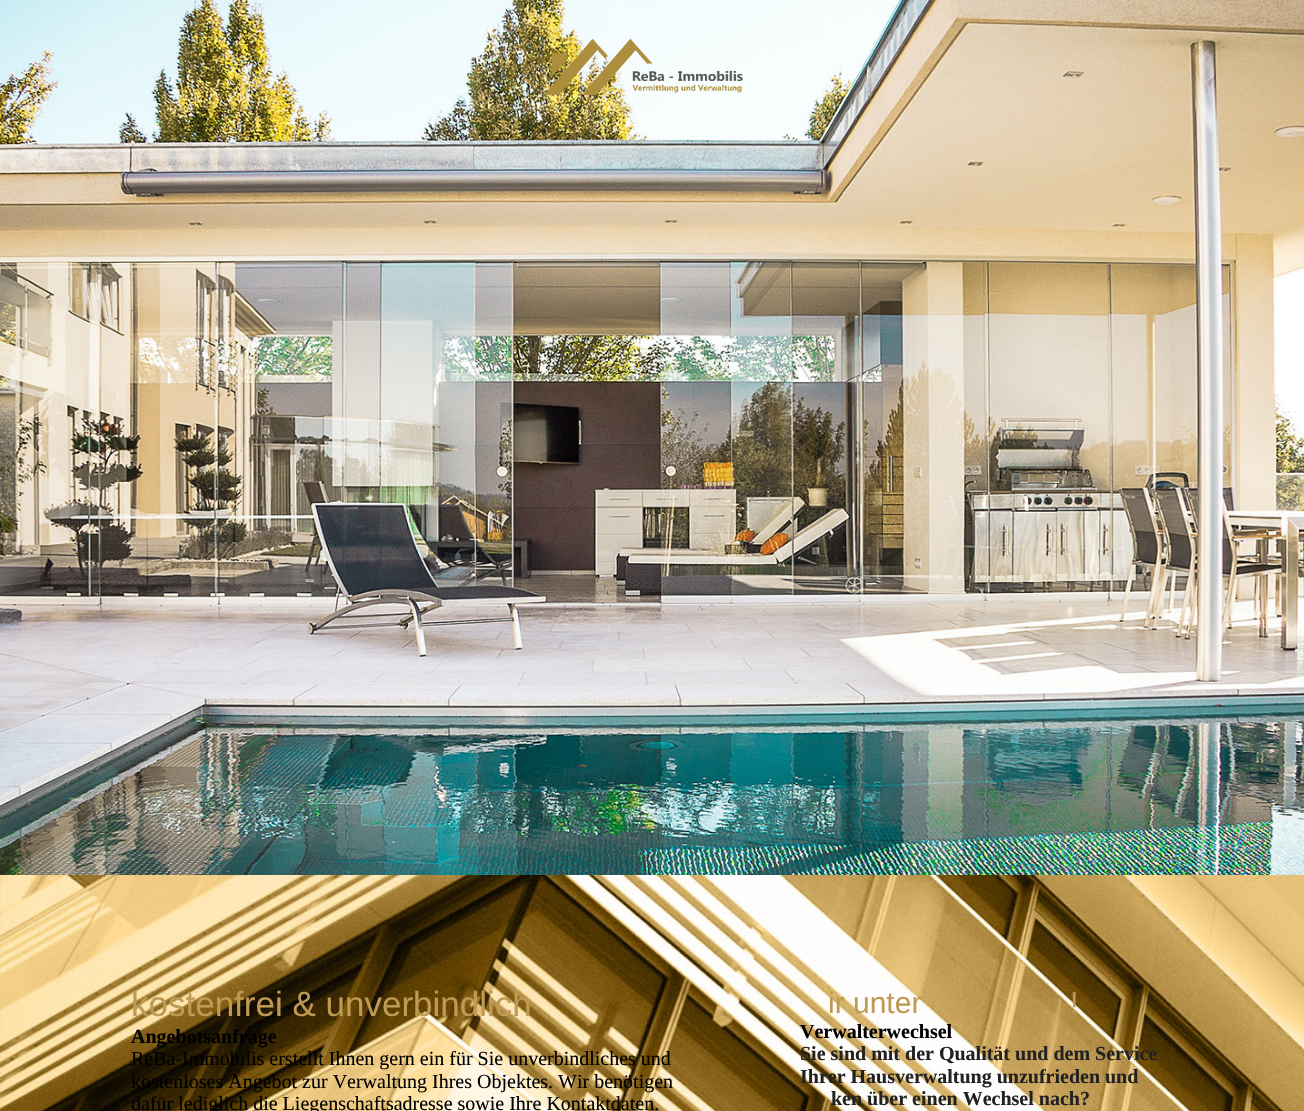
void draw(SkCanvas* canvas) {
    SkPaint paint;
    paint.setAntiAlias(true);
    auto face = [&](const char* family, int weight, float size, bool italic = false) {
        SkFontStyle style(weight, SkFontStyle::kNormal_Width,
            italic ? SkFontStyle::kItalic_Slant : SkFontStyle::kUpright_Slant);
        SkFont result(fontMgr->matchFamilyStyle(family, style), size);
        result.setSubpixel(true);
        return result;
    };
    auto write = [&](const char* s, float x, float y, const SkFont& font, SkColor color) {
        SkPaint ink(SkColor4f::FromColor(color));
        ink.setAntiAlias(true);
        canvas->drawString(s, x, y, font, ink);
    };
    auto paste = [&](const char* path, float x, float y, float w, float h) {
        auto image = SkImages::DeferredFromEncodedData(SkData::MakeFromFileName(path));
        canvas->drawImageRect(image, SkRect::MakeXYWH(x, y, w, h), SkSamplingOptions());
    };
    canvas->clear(SK_ColorWHITE);
    paste("pic1.png", 0, 875, 1304, 236);
    paste("pic2.png", 0, 0, 1304, 875);
    paste("pic3.png", 543, 38, 200, 57);
    auto kFont1 = face("Liberation Sans", 400, 35);
    write("kostenfrei & unverbindlich", 131, 1016, kFont1, SkColorSetRGB(190, 154, 82));
    auto kFont2 = face("Liberation Serif", 700, 20);
    write("Angebotsanfrage", 131, 1043, kFont2, SK_ColorBLACK);
    auto kFont3 = face("Liberation Serif", 400, 20);
    write("ReBa-Immobilis erstellt Ihnen gern ein für Sie unverbindliches und", 131, 1065, kFont3, SK_ColorBLACK);
    write("kostenloses Angebot zur Verwaltung Ihres Objektes. Wir benötigen", 131, 1088, kFont3, SK_ColorBLACK);
    write("dafür lediglich die Liegenschaftsadresse sowie Ihre Kontaktdaten.", 131, 1110, kFont3, SK_ColorBLACK);
    auto kFont4 = face("Liberation Sans", 400, 30);
    write("ir unter", 828, 1013, kFont4, SkColorSetRGB(190, 154, 82));
    write("!", 1070, 1013, kFont4, SkColorSetRGB(190, 154, 82));
    write("Verwalterwechsel", 800, 1038, kFont2, SK_ColorBLACK);
    write("Sie sind mit der Qualität und dem Service", 800, 1060, kFont2, SkColorSetRGB(34, 34, 34));
    write("Ihrer Hausverwaltung unzufrieden und", 800, 1083, kFont2, SkColorSetRGB(34, 34, 34));
    write("ken über einen Wechsel nach?", 831, 1105, kFont2, SkColorSetRGB(34, 34, 34));
}
